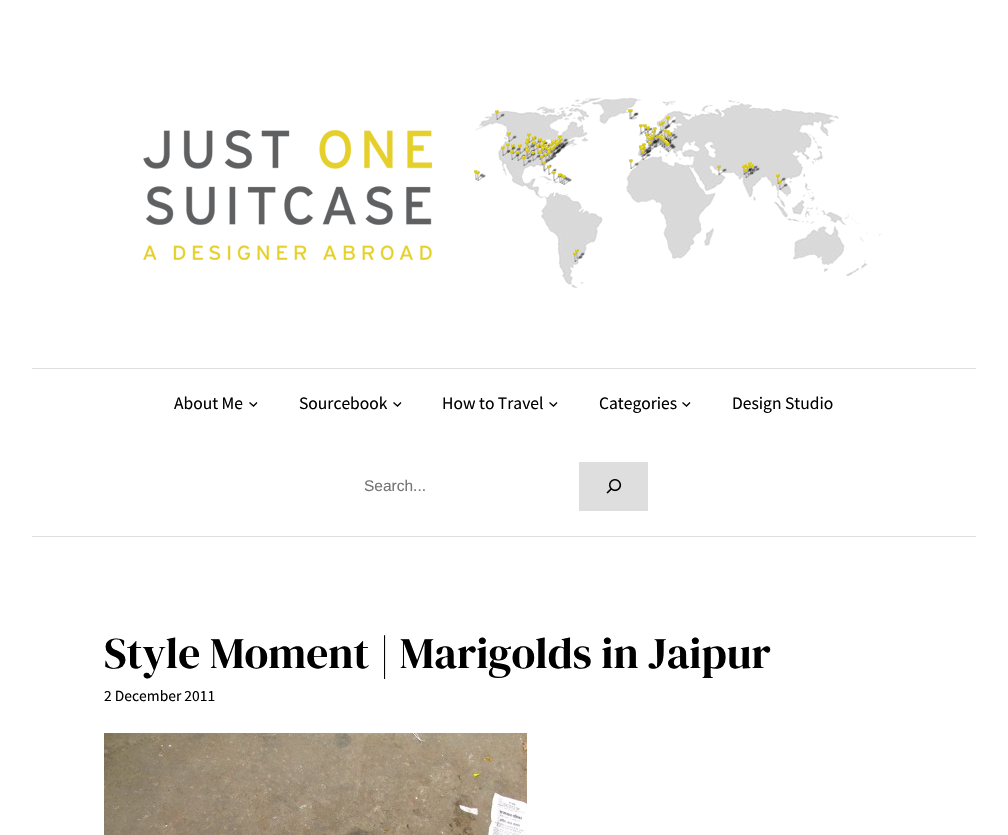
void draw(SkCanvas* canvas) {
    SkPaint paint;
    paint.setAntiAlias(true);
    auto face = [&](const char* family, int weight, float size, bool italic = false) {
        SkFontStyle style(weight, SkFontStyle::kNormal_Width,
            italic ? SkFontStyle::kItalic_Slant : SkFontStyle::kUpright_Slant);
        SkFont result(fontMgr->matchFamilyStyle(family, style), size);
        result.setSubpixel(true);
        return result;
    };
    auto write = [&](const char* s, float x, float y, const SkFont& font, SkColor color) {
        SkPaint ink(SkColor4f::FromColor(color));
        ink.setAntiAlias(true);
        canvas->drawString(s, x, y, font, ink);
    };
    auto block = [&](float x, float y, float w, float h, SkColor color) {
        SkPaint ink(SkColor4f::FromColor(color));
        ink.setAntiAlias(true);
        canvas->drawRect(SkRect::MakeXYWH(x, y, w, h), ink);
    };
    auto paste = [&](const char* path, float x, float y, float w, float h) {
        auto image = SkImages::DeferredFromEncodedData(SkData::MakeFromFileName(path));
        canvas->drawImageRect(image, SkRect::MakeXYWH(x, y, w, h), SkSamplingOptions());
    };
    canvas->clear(SK_ColorWHITE);
    paste("pic1.png", 143, 97, 739, 191);
    block(32, 368, 944, 1, SkColorSetRGB(222, 222, 222));
    block(32, 536, 944, 1, SkColorSetRGB(222, 222, 222));
    auto kFont1 = face("Source Sans Pro", 400, 17.5f);
    write("About Me", 174, 409, kFont1, SK_ColorBLACK);
    paint.setStyle(SkPaint::kStroke_Style);
    paint.setStrokeWidth(1.3f);
    paint.setColor(SK_ColorBLACK);
    canvas->drawPath(SkPathBuilder().moveTo(249.5f, 402.5f).lineTo(253.5f, 406).lineTo(257, 402.5f).detach(), paint);
    write("Sourcebook", 299, 409, kFont1, SK_ColorBLACK);
    canvas->drawPath(SkPathBuilder().moveTo(393.5f, 402.5f).lineTo(397.5f, 406).lineTo(401, 402.5f).detach(), paint);
    write("How to Travel", 442, 409, kFont1, SK_ColorBLACK);
    canvas->drawPath(SkPathBuilder().moveTo(549.5f, 402.5f).lineTo(553.5f, 406).lineTo(557, 402.5f).detach(), paint);
    write("Categories", 599, 409, kFont1, SK_ColorBLACK);
    canvas->drawPath(SkPathBuilder().moveTo(682.5f, 402.5f).lineTo(686.5f, 406).lineTo(690, 402.5f).detach(), paint);
    write("Design Studio", 732, 409, kFont1, SK_ColorBLACK);
    auto kFont2 = face("Liberation Sans", 400, 15.5f);
    write("Search...", 364, 491, kFont2, SkColorSetRGB(117, 117, 117));
    block(579, 462, 69, 49, SkColorSetRGB(222, 222, 222));
    paste("pic2.png", 606, 479, 16, 15);
    auto kFont3 = face("DM Serif Display", 400, 43.6f);
    write("Style Moment | Marigolds in Jaipur", 104, 668, kFont3, SK_ColorBLACK);
    auto kFont4 = face("Source Sans Pro", 400, 15.5f);
    write("2 December 2011", 104, 701, kFont4, SK_ColorBLACK);
    paste("pic3.png", 104, 733, 423, 102);
}
